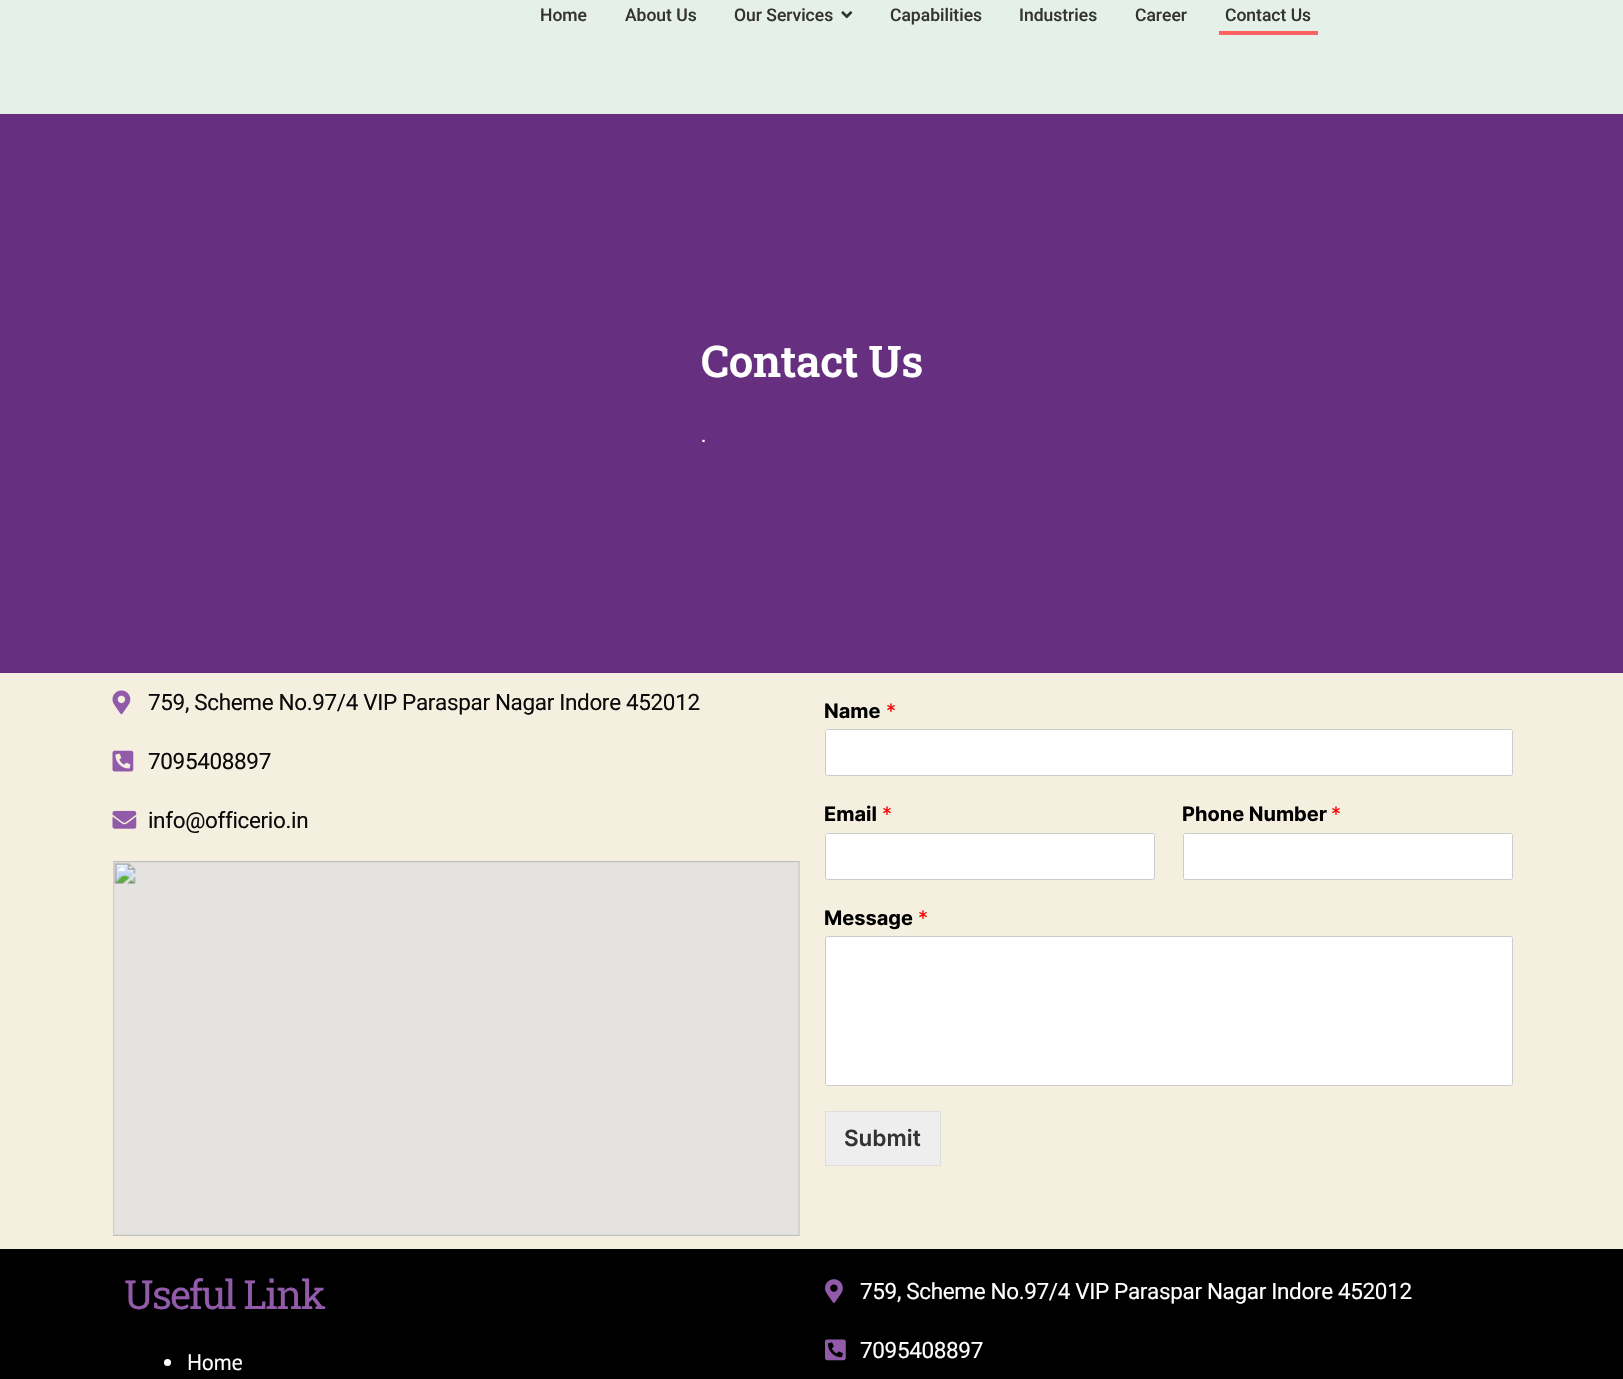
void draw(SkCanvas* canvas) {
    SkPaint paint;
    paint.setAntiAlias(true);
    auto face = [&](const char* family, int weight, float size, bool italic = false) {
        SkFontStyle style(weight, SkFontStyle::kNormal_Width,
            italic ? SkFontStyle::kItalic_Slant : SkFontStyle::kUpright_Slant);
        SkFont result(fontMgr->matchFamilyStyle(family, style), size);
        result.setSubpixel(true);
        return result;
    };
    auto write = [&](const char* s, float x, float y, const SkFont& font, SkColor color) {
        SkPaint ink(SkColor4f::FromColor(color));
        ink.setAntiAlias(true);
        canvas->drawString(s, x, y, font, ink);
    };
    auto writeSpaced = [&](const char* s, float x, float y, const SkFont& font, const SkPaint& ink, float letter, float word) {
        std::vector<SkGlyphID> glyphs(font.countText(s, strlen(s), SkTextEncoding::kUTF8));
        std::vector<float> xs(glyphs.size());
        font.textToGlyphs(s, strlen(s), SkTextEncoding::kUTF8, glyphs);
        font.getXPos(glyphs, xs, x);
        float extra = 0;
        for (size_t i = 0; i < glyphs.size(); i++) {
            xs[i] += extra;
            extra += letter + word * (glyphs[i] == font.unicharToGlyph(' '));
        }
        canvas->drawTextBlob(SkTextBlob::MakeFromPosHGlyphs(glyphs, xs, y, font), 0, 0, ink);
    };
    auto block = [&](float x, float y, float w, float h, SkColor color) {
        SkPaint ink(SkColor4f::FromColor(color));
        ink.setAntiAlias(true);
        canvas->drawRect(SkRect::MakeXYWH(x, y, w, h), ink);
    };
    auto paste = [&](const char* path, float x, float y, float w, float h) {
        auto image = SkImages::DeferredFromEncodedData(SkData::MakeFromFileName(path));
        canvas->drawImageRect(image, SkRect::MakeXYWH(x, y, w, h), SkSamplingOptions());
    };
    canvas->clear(SkColorSetRGB(245, 239, 224));
    block(0, 0, 1623, 114, SkColorSetRGB(228, 240, 232));
    auto kFont1 = face("Roboto", 500, 17.5f);
    write("Home", 540, 21, kFont1, SkColorSetRGB(51, 51, 51));
    write("About Us", 625, 21, kFont1, SkColorSetRGB(51, 51, 51));
    write("Our Services", 734, 21, kFont1, SkColorSetRGB(51, 51, 51));
    paste("pic1.png", 841, 11, 12, 8);
    write("Capabilities", 890, 21, kFont1, SkColorSetRGB(51, 51, 51));
    write("Industries", 1019, 21, kFont1, SkColorSetRGB(51, 51, 51));
    write("Career", 1135, 21, kFont1, SkColorSetRGB(51, 51, 51));
    block(1219, 31, 99, 4, SkColorSetRGB(255, 97, 97));
    write("Contact Us", 1225, 21, kFont1, SkColorSetRGB(51, 51, 51));
    block(0, 114, 1623, 559, SkColorSetRGB(103, 47, 128));
    auto kFont2 = face("Roboto Slab", 600, 43.75f);
    paint.setColor(SK_ColorWHITE);
    writeSpaced("Contact Us", 701, 377, kFont2, paint, -0.35f, 0);
    auto kFont3 = face("Roboto Slab", 400, 21);
    writeSpaced(".", 701, 442, kFont3, paint, -0.35f, 0);
    paste("pic2.png", 112, 690, 19, 25);
    auto kFont4 = face("Roboto", 400, 22.5f);
    paint.setColor(SkColorSetRGB(12, 11, 11));
    writeSpaced("759, Scheme No.97/4 VIP Paraspar Nagar Indore 452012", 148, 710, kFont4, paint, -0.35f, 0);
    paste("pic3.png", 112, 750, 22, 22);
    writeSpaced("7095408897", 148, 769, kFont4, paint, -0.35f, 0);
    paste("pic4.png", 112, 810, 25, 19);
    writeSpaced("info@officerio.in", 148, 828, kFont4, paint, -0.35f, 0);
    paste("pic5.png", 113, 861, 687, 375);
    auto kFont5 = face("Inter", 700, 20);
    write("Name", 824, 718, kFont5, SK_ColorBLACK);
    auto kFont6 = face("Inter", 400, 20);
    write("*", 886, 718, kFont6, SkColorSetRGB(255, 0, 0));
    paint.setColor(SK_ColorWHITE);
    canvas->drawRoundRect(SkRect::MakeXYWH(825.5f, 729.5f, 687, 46), 2, 2, paint);
    paint.setStyle(SkPaint::kStroke_Style);
    paint.setStrokeWidth(1);
    paint.setColor(SkColorSetRGB(204, 204, 204));
    canvas->drawRoundRect(SkRect::MakeXYWH(825.5f, 729.5f, 687, 46), 2, 2, paint);
    write("Email", 824, 821, kFont5, SK_ColorBLACK);
    write("*", 882, 821, kFont6, SkColorSetRGB(255, 0, 0));
    paint.setStyle(SkPaint::kFill_Style);
    paint.setColor(SK_ColorWHITE);
    canvas->drawRoundRect(SkRect::MakeXYWH(825.5f, 833.5f, 329, 46), 2, 2, paint);
    paint.setStyle(SkPaint::kStroke_Style);
    paint.setColor(SkColorSetRGB(204, 204, 204));
    canvas->drawRoundRect(SkRect::MakeXYWH(825.5f, 833.5f, 329, 46), 2, 2, paint);
    write("Phone Number", 1182, 821, kFont5, SK_ColorBLACK);
    write("*", 1331, 821, kFont6, SkColorSetRGB(255, 0, 0));
    paint.setStyle(SkPaint::kFill_Style);
    paint.setColor(SK_ColorWHITE);
    canvas->drawRoundRect(SkRect::MakeXYWH(1183.5f, 833.5f, 329, 46), 2, 2, paint);
    paint.setStyle(SkPaint::kStroke_Style);
    paint.setColor(SkColorSetRGB(204, 204, 204));
    canvas->drawRoundRect(SkRect::MakeXYWH(1183.5f, 833.5f, 329, 46), 2, 2, paint);
    write("Message", 824, 925, kFont5, SK_ColorBLACK);
    write("*", 918, 925, kFont6, SkColorSetRGB(255, 0, 0));
    paint.setStyle(SkPaint::kFill_Style);
    paint.setColor(SK_ColorWHITE);
    canvas->drawRoundRect(SkRect::MakeXYWH(825.5f, 936.5f, 687, 149), 2, 2, paint);
    paint.setStyle(SkPaint::kStroke_Style);
    paint.setColor(SkColorSetRGB(204, 204, 204));
    canvas->drawRoundRect(SkRect::MakeXYWH(825.5f, 936.5f, 687, 149), 2, 2, paint);
    paint.setStyle(SkPaint::kFill_Style);
    paint.setColor(SkColorSetRGB(238, 238, 238));
    canvas->drawRect(SkRect::MakeXYWH(825.5f, 1111.5f, 115, 54), paint);
    paint.setStyle(SkPaint::kStroke_Style);
    paint.setColor(SkColorSetRGB(221, 221, 221));
    canvas->drawRect(SkRect::MakeXYWH(825.5f, 1111.5f, 115, 54), paint);
    auto kFont7 = face("Inter", 600, 22.5f);
    write("Submit", 844, 1146, kFont7, SkColorSetRGB(51, 51, 51));
    block(0, 1249, 1623, 130, SK_ColorBLACK);
    auto kFont8 = face("Roboto Slab", 400, 40);
    paint.setStyle(SkPaint::kFill_Style);
    paint.setColor(SkColorSetRGB(146, 91, 169));
    writeSpaced("Useful Link", 124, 1309, kFont8, paint, -1.75f, 0);
    paint.setColor(SK_ColorWHITE);
    canvas->drawCircle(167.5f, 1362.5f, 3.5f, paint);
    auto kFont9 = face("PT Sans", 400, 22.5f);
    writeSpaced("Home", 187, 1370, kFont9, paint, -0.35f, 0);
    paste("pic6.png", 825, 1279, 18, 24);
    writeSpaced("759, Scheme No.97/4 VIP Paraspar Nagar Indore 452012", 860, 1299, kFont4, paint, -0.35f, 0);
    paste("pic7.png", 825, 1339, 21, 22);
    writeSpaced("7095408897", 860, 1358, kFont4, paint, -0.35f, 0);
}
